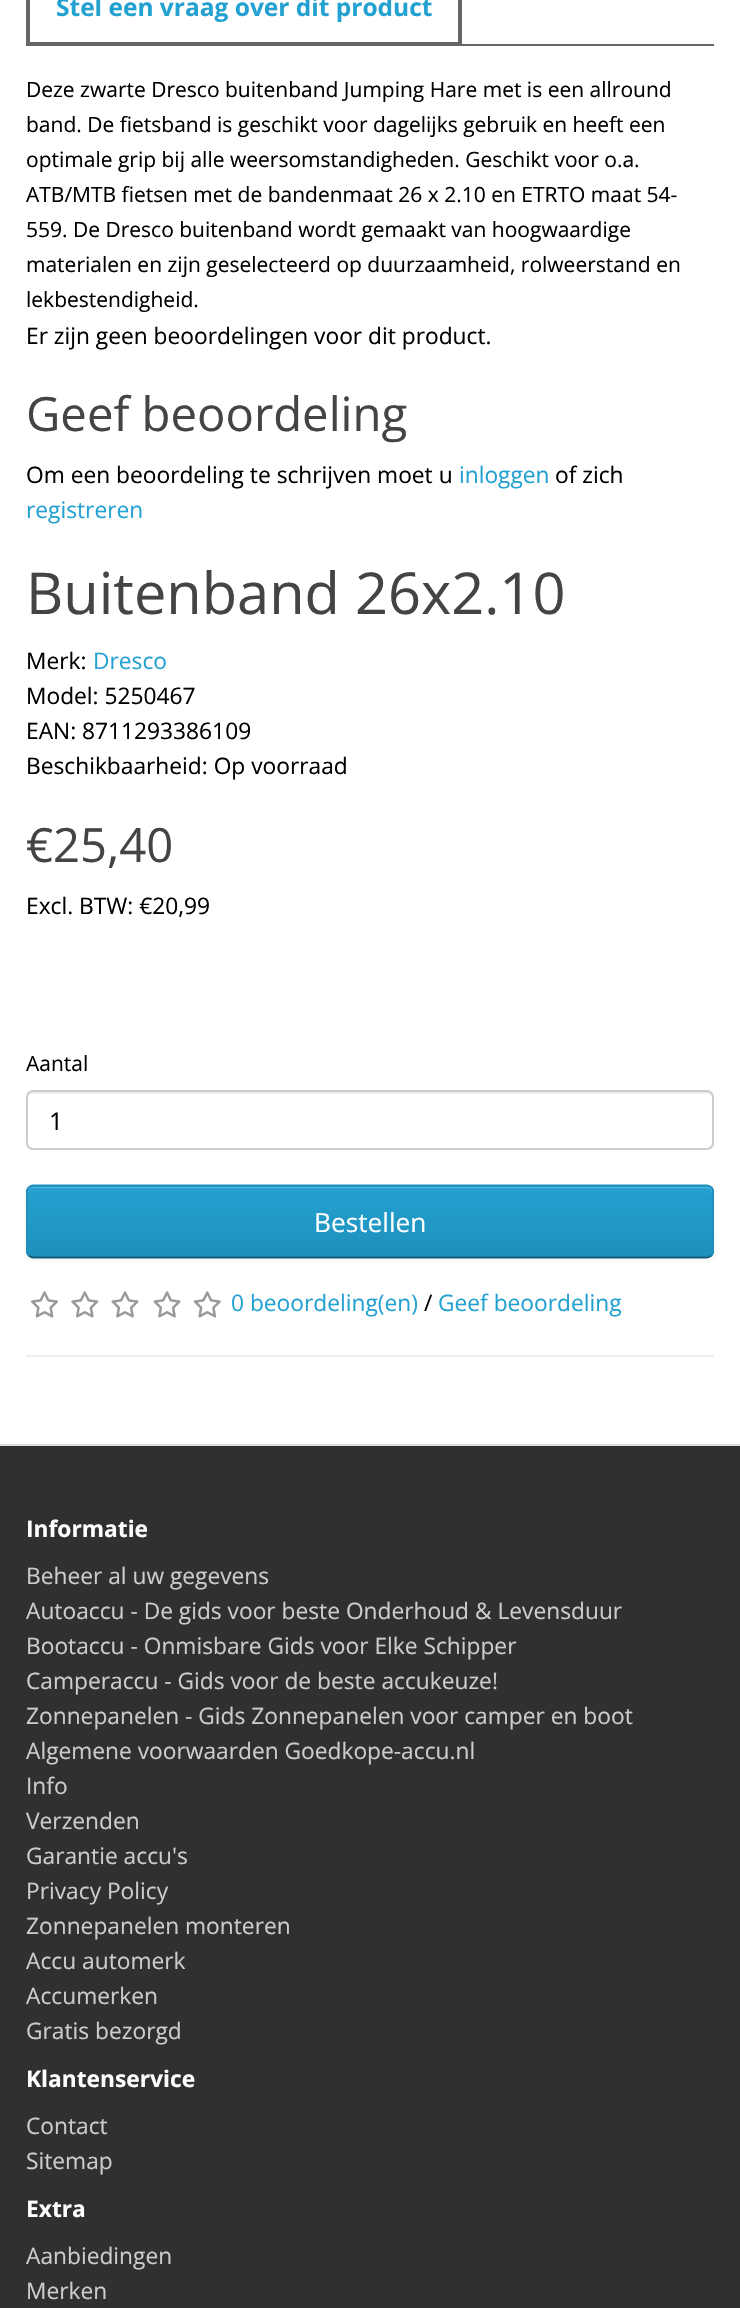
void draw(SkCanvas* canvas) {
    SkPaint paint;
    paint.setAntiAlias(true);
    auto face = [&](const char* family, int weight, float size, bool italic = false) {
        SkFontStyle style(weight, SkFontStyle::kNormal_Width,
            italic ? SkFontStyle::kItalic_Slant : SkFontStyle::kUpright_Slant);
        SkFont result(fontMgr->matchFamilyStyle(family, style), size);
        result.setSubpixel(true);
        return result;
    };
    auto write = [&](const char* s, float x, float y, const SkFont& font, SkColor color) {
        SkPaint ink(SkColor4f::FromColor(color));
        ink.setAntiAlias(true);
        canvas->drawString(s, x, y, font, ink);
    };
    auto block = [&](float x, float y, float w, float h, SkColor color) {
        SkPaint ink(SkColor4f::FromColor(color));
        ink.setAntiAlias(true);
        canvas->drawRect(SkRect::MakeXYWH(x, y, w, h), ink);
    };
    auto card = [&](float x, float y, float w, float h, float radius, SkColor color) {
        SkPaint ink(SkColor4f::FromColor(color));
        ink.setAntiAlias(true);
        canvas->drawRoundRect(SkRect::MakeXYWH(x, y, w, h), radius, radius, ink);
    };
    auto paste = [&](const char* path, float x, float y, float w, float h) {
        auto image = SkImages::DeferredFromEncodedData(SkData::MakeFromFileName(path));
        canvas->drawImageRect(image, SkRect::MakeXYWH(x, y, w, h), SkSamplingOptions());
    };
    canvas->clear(SK_ColorWHITE);
    block(462, 44, 252, 2, SkColorSetRGB(102, 102, 102));
    paint.setStyle(SkPaint::kStroke_Style);
    paint.setStrokeWidth(4);
    paint.setColor(SkColorSetRGB(102, 102, 102));
    canvas->drawRect(SkRect::MakeXYWH(28, -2, 432, 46), paint);
    auto kFont1 = face("Open Sans", 700, 24.5f);
    write("Stel een vraag over dit product", 56, 16, kFont1, SkColorSetRGB(35, 161, 209));
    auto kFont2 = face("Open Sans", 400, 21);
    write("Deze zwarte Dresco buitenband Jumping Hare met is een allround", 26, 97, kFont2, SK_ColorBLACK);
    write("band. De fietsband is geschikt voor dagelijks gebruik en heeft een", 26, 132, kFont2, SK_ColorBLACK);
    write("optimale grip bij alle weersomstandigheden. Geschikt voor o.a.", 26, 167, kFont2, SK_ColorBLACK);
    write("ATB/MTB fietsen met de bandenmaat 26 x 2.10 en ETRTO maat 54-", 26, 202, kFont2, SK_ColorBLACK);
    write("559. De Dresco buitenband wordt gemaakt van hoogwaardige", 26, 237, kFont2, SK_ColorBLACK);
    write("materialen en zijn geselecteerd op duurzaamheid, rolweerstand en", 26, 272, kFont2, SK_ColorBLACK);
    write("lekbestendigheid.", 26, 307, kFont2, SK_ColorBLACK);
    auto kFont3 = face("Open Sans", 400, 22.75f);
    write("Er zijn geen beoordelingen voor dit product.", 26, 344, kFont3, SK_ColorBLACK);
    auto kFont4 = face("Open Sans", 400, 47.25f);
    write("Geef beoordeling", 26, 431, kFont4, SkColorSetRGB(68, 68, 68));
    write("Om een beoordeling te schrijven moet u", 26, 483, kFont3, SK_ColorBLACK);
    write("inloggen", 459, 483, kFont3, SkColorSetRGB(35, 161, 209));
    write("of zich", 555, 483, kFont3, SK_ColorBLACK);
    write("registreren", 26, 518, kFont3, SkColorSetRGB(35, 161, 209));
    auto kFont5 = face("Open Sans", 400, 57.75f);
    write("Buitenband 26x2.10", 26, 614, kFont5, SkColorSetRGB(68, 68, 68));
    write("Merk:", 26, 669, kFont3, SK_ColorBLACK);
    write("Dresco", 93, 669, kFont3, SkColorSetRGB(35, 161, 209));
    write("Model: 5250467", 26, 704, kFont3, SK_ColorBLACK);
    write("EAN: 8711293386109", 26, 739, kFont3, SK_ColorBLACK);
    write("Beschikbaarheid: Op voorraad", 26, 774, kFont3, SK_ColorBLACK);
    write("€25,40", 26, 862, kFont4, SkColorSetRGB(68, 68, 68));
    write("Excl. BTW: €20,99", 26, 914, kFont3, SK_ColorBLACK);
    write("Aantal", 26, 1071, kFont2, SK_ColorBLACK);
    paint.setStyle(SkPaint::kFill_Style);
    paint.setColor(SkColorSetRGB(236, 236, 236));
    canvas->drawPath(SkPathBuilder().moveTo(33, 1094).lineTo(707, 1094).cubicTo(710, 1094, 712, 1096, 712, 1099).lineTo(712, 1097).cubicTo(712, 1094, 710, 1092, 707, 1092).lineTo(33, 1092).cubicTo(30, 1092, 28, 1094, 28, 1097).lineTo(28, 1099).cubicTo(28, 1096, 30, 1094, 33, 1094).close().detach(), paint);
    paint.setStyle(SkPaint::kStroke_Style);
    paint.setStrokeWidth(2);
    paint.setColor(SkColorSetRGB(204, 204, 204));
    canvas->drawRoundRect(SkRect::MakeXYWH(27, 1091, 686, 58), 6, 6, paint);
    auto kFont6 = face("Open Sans", 400, 24.5f);
    write("1", 49, 1130, kFont6, SK_ColorBLACK);
    paint.setStyle(SkPaint::kFill_Style);
    paint.setColor(SkColorSetARGB(13, 0, 0, 0));
    paint.setMaskFilter(SkMaskFilter::MakeBlur(kNormal_SkBlurStyle, 2));
    canvas->drawRoundRect(SkRect::MakeXYWH(26, 1187, 688, 73), 7, 7, paint);
    paint.setMaskFilter(nullptr);
    card(26, 1185, 688, 73, 7, SkColorSetRGB(34, 154, 200));
    canvas->save();
    canvas->clipPath(SkPathBuilder().moveTo(33, 1185).lineTo(707, 1185).cubicTo(711, 1185, 714, 1188, 714, 1192).lineTo(714, 1251).cubicTo(714, 1255, 711, 1258, 707, 1258).lineTo(33, 1258).cubicTo(29, 1258, 26, 1255, 26, 1251).lineTo(26, 1192).cubicTo(26, 1188, 29, 1185, 33, 1185).close().detach(), true);
    {
        const SkColor colors[] = {SkColorSetRGB(35, 161, 209), SkColorSetRGB(31, 144, 187)};
        const float stops[] = {0, 1};
        const SkPoint ends[] = {{370, 1187}, {370, 1257}};
        paint.setShader(SkGradientShader::MakeLinear(ends, colors, stops, 2, SkTileMode::kClamp));
        paint.setAlpha(255);
    }
    canvas->drawRect(SkRect::MakeXYWH(26, 1187, 688, 70), paint);
    canvas->restore();
    paint.setShader(nullptr);
    paint.setColor(SkColorSetRGB(79, 180, 218));
    canvas->drawPath(SkPathBuilder().moveTo(33, 1188).lineTo(707, 1188).cubicTo(710, 1188, 712, 1191, 712, 1194).lineTo(712, 1192).cubicTo(712, 1189, 710, 1187, 707, 1187).lineTo(33, 1187).cubicTo(30, 1187, 28, 1189, 28, 1192).lineTo(28, 1194).cubicTo(28, 1191, 30, 1188, 33, 1188).close().detach(), paint);
    paint.setStyle(SkPaint::kStroke_Style);
    paint.setStrokeWidth(1.8f);
    paint.setColor(SkColorSetRGB(20, 94, 122));
    canvas->drawPath(SkPathBuilder().moveTo(711.5f, 1255.5f).cubicTo(710, 1256.5f, 708.5f, 1257.5f, 707, 1257.5f).lineTo(33, 1257.5f).cubicTo(31.5f, 1257.5f, 30, 1256.5f, 29, 1255.5f).detach(), paint);
    paint.setColor(SkColorSetRGB(31, 144, 187));
    canvas->drawPath(SkPathBuilder().moveTo(29, 1255.5f).cubicTo(28, 1254.5f, 27, 1253, 27, 1251).lineTo(27, 1192).cubicTo(27, 1190, 28, 1188.5f, 29, 1187.5f).cubicTo(30, 1186.5f, 31.5f, 1185.5f, 33, 1185.5f).lineTo(707, 1185.5f).cubicTo(708.5f, 1185.5f, 710, 1186.5f, 711.5f, 1187.5f).cubicTo(712.5f, 1188.5f, 713, 1190, 713, 1192).lineTo(713, 1251).cubicTo(713, 1253, 712.5f, 1254.5f, 711.5f, 1255.5f).detach(), paint);
    auto kFont7 = face("Open Sans", 400, 26.25f);
    write("Bestellen", 314, 1232, kFont7, SK_ColorWHITE);
    paste("pic1.png", 31, 1291, 27, 27);
    paste("pic2.png", 71, 1291, 28, 27);
    paste("pic3.png", 111, 1291, 28, 27);
    paste("pic3.png", 153, 1291, 28, 27);
    paste("pic4.png", 193, 1291, 28, 27);
    write("0 beoordeling(en)", 231, 1311, kFont3, SkColorSetRGB(35, 161, 209));
    write("/", 424, 1311, kFont3, SK_ColorBLACK);
    write("Geef beoordeling", 438, 1311, kFont3, SkColorSetRGB(35, 161, 209));
    block(26, 1355, 688, 2, SkColorSetRGB(238, 238, 238));
    block(0, 1446, 740, 862, SkColorSetRGB(48, 48, 48));
    block(0, 1444, 740, 2, SkColorSetRGB(221, 221, 221));
    auto kFont8 = face("Open Sans", 700, 22.75f);
    write("Informatie", 26, 1537, kFont8, SK_ColorWHITE);
    write("Beheer al uw gegevens", 26, 1584, kFont3, SkColorSetRGB(204, 204, 204));
    write("Autoaccu - De gids voor beste Onderhoud & Levensduur", 26, 1619, kFont3, SkColorSetRGB(204, 204, 204));
    write("Bootaccu - Onmisbare Gids voor Elke Schipper", 26, 1654, kFont3, SkColorSetRGB(204, 204, 204));
    write("Camperaccu - Gids voor de beste accukeuze!", 26, 1689, kFont3, SkColorSetRGB(204, 204, 204));
    write("Zonnepanelen - Gids Zonnepanelen voor camper en boot", 26, 1724, kFont3, SkColorSetRGB(204, 204, 204));
    write("Algemene voorwaarden Goedkope-accu.nl", 26, 1759, kFont3, SkColorSetRGB(204, 204, 204));
    write("Info", 26, 1794, kFont3, SkColorSetRGB(204, 204, 204));
    write("Verzenden", 26, 1829, kFont3, SkColorSetRGB(204, 204, 204));
    write("Garantie accu's", 26, 1864, kFont3, SkColorSetRGB(204, 204, 204));
    write("Privacy Policy", 26, 1899, kFont3, SkColorSetRGB(204, 204, 204));
    write("Zonnepanelen monteren", 26, 1934, kFont3, SkColorSetRGB(204, 204, 204));
    write("Accu automerk", 26, 1969, kFont3, SkColorSetRGB(204, 204, 204));
    write("Accumerken", 26, 2004, kFont3, SkColorSetRGB(204, 204, 204));
    write("Gratis bezorgd", 26, 2039, kFont3, SkColorSetRGB(204, 204, 204));
    write("Klantenservice", 26, 2087, kFont8, SK_ColorWHITE);
    write("Contact", 26, 2134, kFont3, SkColorSetRGB(204, 204, 204));
    write("Sitemap", 26, 2169, kFont3, SkColorSetRGB(204, 204, 204));
    write("Extra", 26, 2217, kFont8, SK_ColorWHITE);
    write("Aanbiedingen", 26, 2264, kFont3, SkColorSetRGB(204, 204, 204));
    write("Merken", 26, 2299, kFont3, SkColorSetRGB(204, 204, 204));
}
